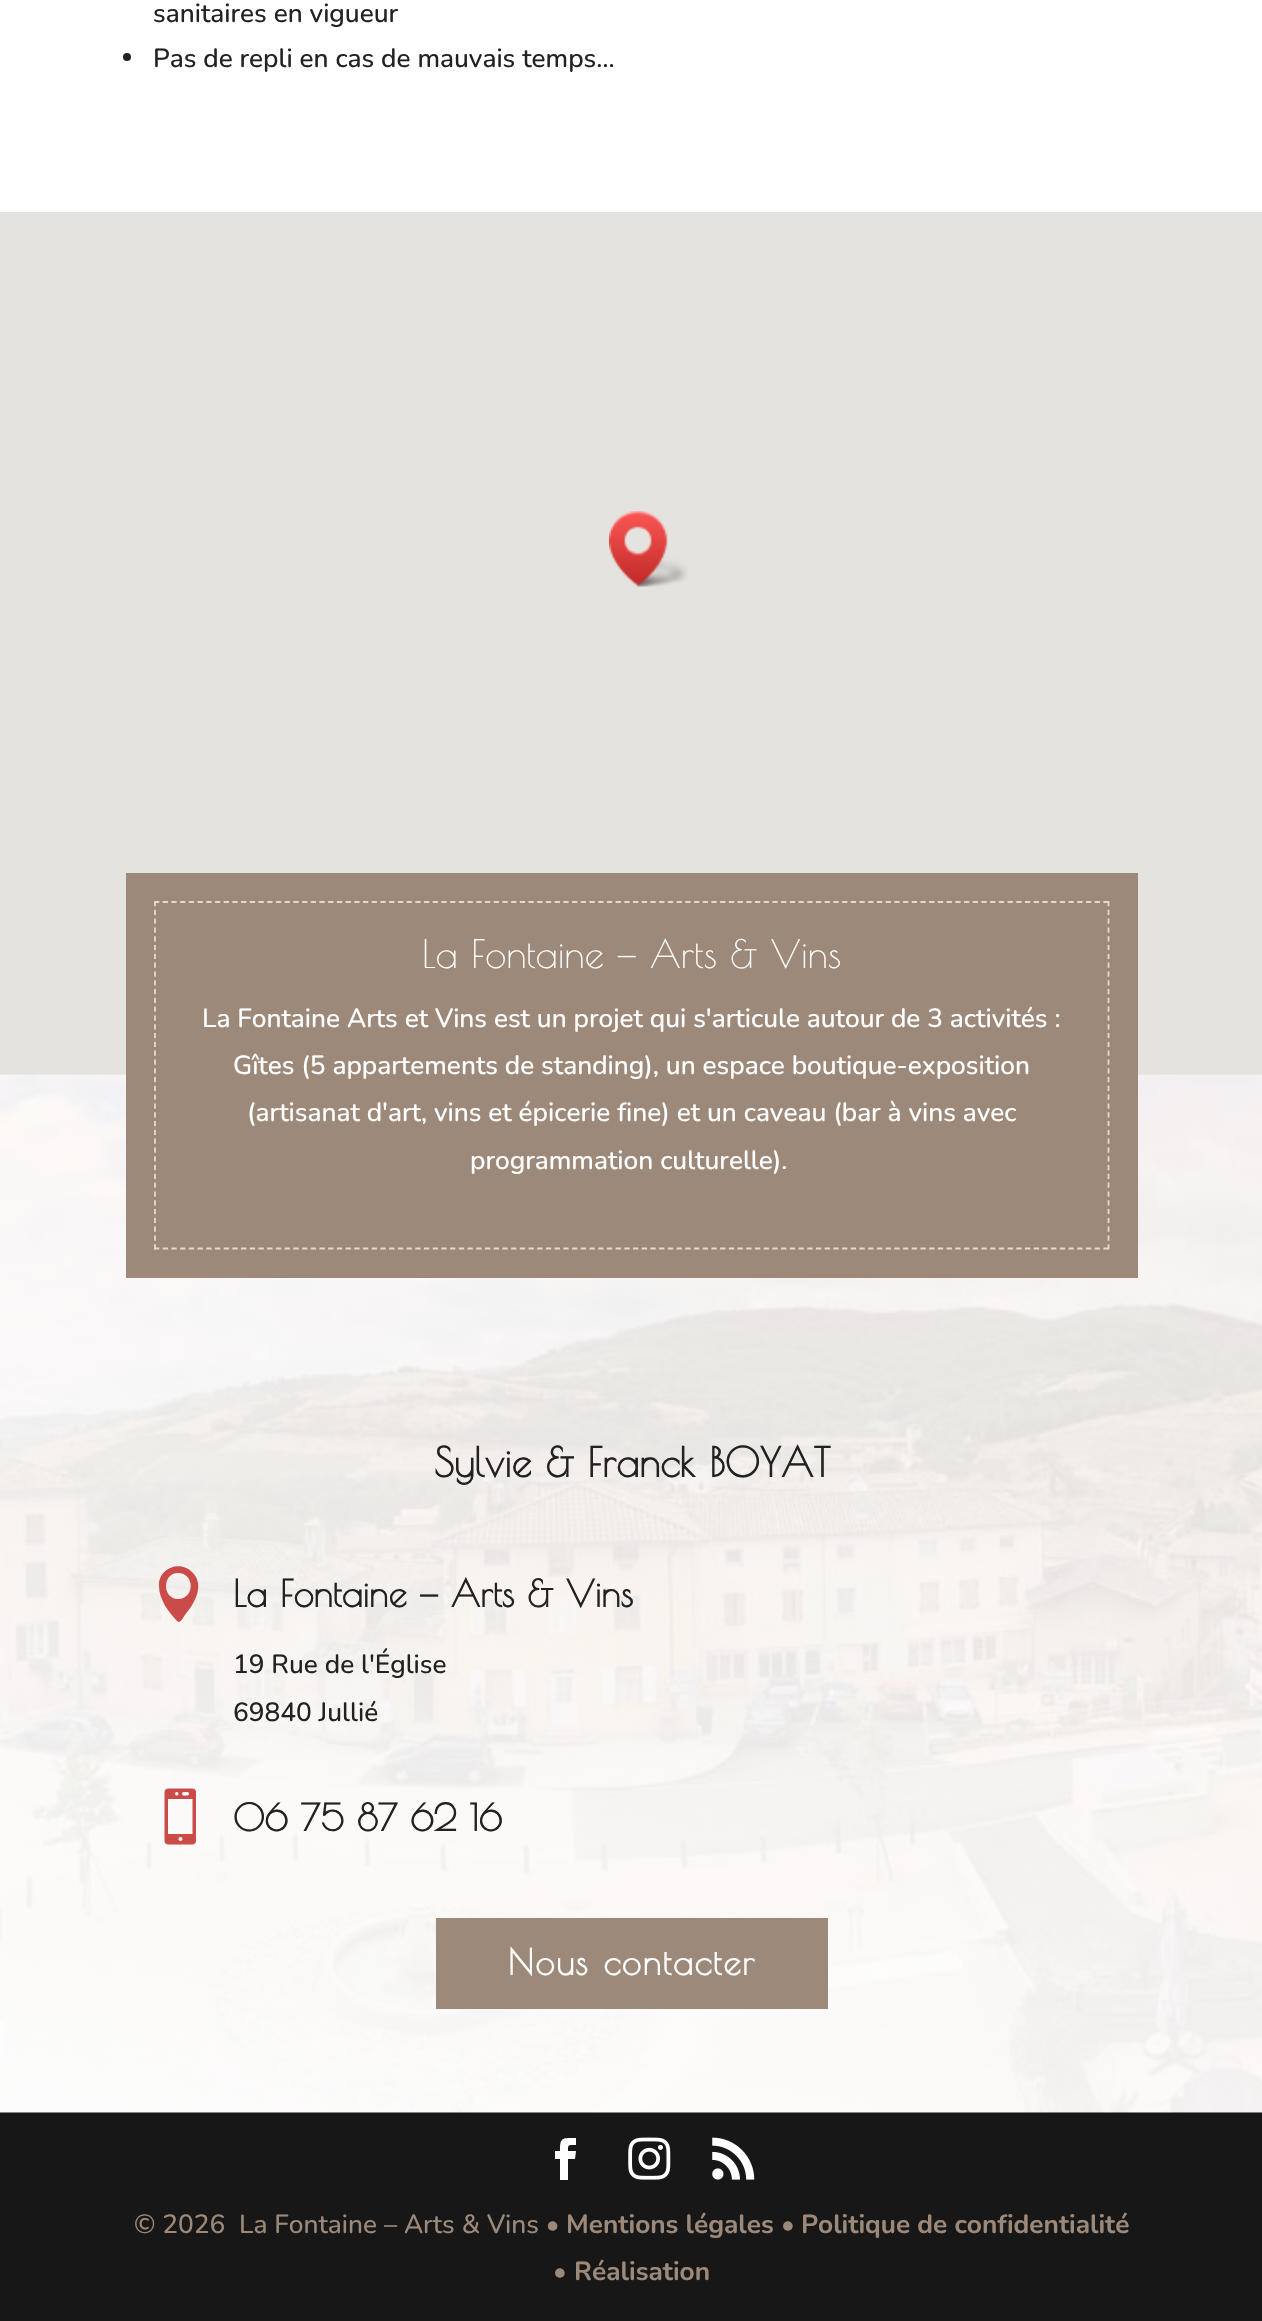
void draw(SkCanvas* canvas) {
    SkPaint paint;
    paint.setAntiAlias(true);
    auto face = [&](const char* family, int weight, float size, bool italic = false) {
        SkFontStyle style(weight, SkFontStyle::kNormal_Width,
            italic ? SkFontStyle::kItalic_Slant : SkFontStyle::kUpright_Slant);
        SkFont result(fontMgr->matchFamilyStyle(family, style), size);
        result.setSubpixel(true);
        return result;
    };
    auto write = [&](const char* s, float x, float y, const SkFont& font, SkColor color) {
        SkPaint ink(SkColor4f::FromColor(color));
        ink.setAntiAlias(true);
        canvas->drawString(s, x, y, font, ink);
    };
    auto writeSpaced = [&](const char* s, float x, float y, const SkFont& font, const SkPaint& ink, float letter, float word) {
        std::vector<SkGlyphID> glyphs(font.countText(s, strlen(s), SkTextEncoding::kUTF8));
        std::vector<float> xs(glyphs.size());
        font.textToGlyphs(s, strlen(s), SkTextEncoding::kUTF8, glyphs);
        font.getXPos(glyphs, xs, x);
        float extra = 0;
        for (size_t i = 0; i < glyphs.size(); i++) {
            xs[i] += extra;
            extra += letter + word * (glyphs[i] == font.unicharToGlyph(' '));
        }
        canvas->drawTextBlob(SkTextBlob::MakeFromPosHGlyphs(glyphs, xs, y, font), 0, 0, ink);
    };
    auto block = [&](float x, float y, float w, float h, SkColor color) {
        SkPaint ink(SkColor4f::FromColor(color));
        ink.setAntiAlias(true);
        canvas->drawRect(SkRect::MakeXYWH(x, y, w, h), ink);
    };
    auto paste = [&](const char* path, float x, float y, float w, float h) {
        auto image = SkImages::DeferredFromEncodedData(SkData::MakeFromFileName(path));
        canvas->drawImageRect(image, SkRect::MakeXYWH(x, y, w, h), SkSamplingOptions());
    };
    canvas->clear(SK_ColorWHITE);
    auto kFont1 = face("Nunito", 200, 26.25f);
    write("sanitaires en vigueur", 153, 22, kFont1, SkColorSetRGB(34, 34, 33));
    paint.setColor(SkColorSetRGB(34, 34, 33));
    canvas->drawCircle(127, 57, 4, paint);
    write("Pas de repli en cas de mauvais temps…", 153, 67, kFont1, SkColorSetRGB(34, 34, 33));
    block(0, 212, 1262, 863, SkColorSetRGB(229, 227, 223));
    paste("pic1.png", 609, 511, 79, 76);
    block(0, 2112, 1262, 209, SkColorSetRGB(23, 23, 23));
    paste("pic2.png", 0, 1074, 1262, 1039);
    block(126, 873, 1012, 405, SkColorSetRGB(156, 137, 122));
    paint.setStyle(SkPaint::kStroke_Style);
    paint.setStrokeWidth(1.8f);
    paint.setColor(SkColorSetRGB(239, 213, 196));
    paint.setPathEffect(SkDashPathEffect::Make({{5.25f, 3.46f}}, 0));
    canvas->drawPath(SkPathBuilder().moveTo(154, 902).lineTo(1109.5f, 902).detach(), paint);
    paint.setPathEffect(nullptr);
    paint.setPathEffect(SkDashPathEffect::Make({{5.25f, 3.55f}}, 0));
    canvas->drawPath(SkPathBuilder().moveTo(1108.5f, 901).lineTo(1108.5f, 1249.5f).detach(), paint);
    paint.setPathEffect(nullptr);
    paint.setPathEffect(SkDashPathEffect::Make({{5.25f, 3.46f}}, 0));
    canvas->drawPath(SkPathBuilder().moveTo(154, 1248.5f).lineTo(1109.5f, 1248.5f).detach(), paint);
    paint.setPathEffect(nullptr);
    paint.setPathEffect(SkDashPathEffect::Make({{5.25f, 3.55f}}, 0));
    canvas->drawPath(SkPathBuilder().moveTo(155, 901).lineTo(155, 1249.5f).detach(), paint);
    paint.setPathEffect(nullptr);
    auto kFont2 = face("Poiret One", 400, 38.5f);
    write("La Fontaine — Arts & Vins", 422, 968, kFont2, SK_ColorWHITE);
    write("La Fontaine Arts et Vins est un projet qui s'articule autour de 3 activités :", 202, 1027, kFont1, SK_ColorWHITE);
    write("Gîtes (5 appartements de standing), un espace boutique-exposition", 233, 1074, kFont1, SK_ColorWHITE);
    write("(artisanat d'art, vins et épicerie fine) et un caveau (bar à vins avec", 247, 1121, kFont1, SK_ColorWHITE);
    write("programmation culturelle).", 470, 1169, kFont1, SK_ColorWHITE);
    auto kFont3 = face("Poiret One", 700, 40.25f);
    write("Sylvie & Franck BOYAT", 434, 1477, kFont3, SkColorSetRGB(34, 34, 33));
    paint.setStyle(SkPaint::kFill_Style);
    paint.setColor(SkColorSetRGB(203, 75, 72));
    canvas->drawPath(SkPathBuilder().moveTo(177, 1621).lineTo(179, 1622).cubicTo(181, 1622, 184, 1616, 185, 1615).cubicTo(194, 1604, 205, 1586, 193, 1573).cubicTo(181, 1559, 158, 1568, 159, 1586).cubicTo(159, 1600, 169, 1612, 177, 1621).close().moveTo(178, 1573).cubicTo(195, 1573, 195, 1599, 178, 1599).cubicTo(162, 1599, 162, 1573, 178, 1573).close().detach(), paint);
    auto kFont4 = face("Poiret One", 700, 36.75f);
    write("La Fontaine — Arts & Vins", 233, 1607, kFont4, SkColorSetRGB(34, 34, 33));
    write("19 Rue de l'Église", 233, 1673, kFont1, SkColorSetRGB(34, 34, 33));
    write("69840 Jullié", 233, 1721, kFont1, SkColorSetRGB(34, 34, 33));
    paste("pic3.png", 164, 1788, 32, 57);
    write("06 75 87 62 16", 233, 1831, kFont4, SkColorSetRGB(34, 34, 33));
    block(436, 1918, 392, 91, SkColorSetRGB(156, 137, 122));
    auto kFont5 = face("Poiret One", 700, 35);
    paint.setColor(SK_ColorWHITE);
    writeSpaced("Nous contacter", 508, 1975, kFont5, paint, 1.75f, 0);
    canvas->drawPath(SkPathBuilder().moveTo(560, 2180).lineTo(568, 2180).lineTo(568, 2159).lineTo(575, 2159).lineTo(576, 2151).lineTo(568, 2151).cubicTo(568, 2144, 568, 2145, 576, 2145).lineTo(576, 2138).cubicTo(562, 2138, 560, 2137, 560, 2151).lineTo(555, 2151).lineTo(555, 2159).lineTo(560, 2159).close().detach(), paint);
    paste("pic4.png", 628, 2137, 43, 43);
    paste("pic5.png", 712, 2137, 43, 43);
    write("© 2026", 134, 2233, kFont1, SkColorSetRGB(156, 137, 122));
    write("La Fontaine – Arts & Vins •", 239, 2233, kFont1, SkColorSetRGB(156, 137, 122));
    auto kFont6 = face("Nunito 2", 200, 26.25f);
    write("Mentions légales", 566, 2233, kFont6, SkColorSetRGB(156, 137, 122));
    write("•", 781, 2233, kFont1, SkColorSetRGB(156, 137, 122));
    write("Politique de confidentialité", 801, 2233, kFont6, SkColorSetRGB(156, 137, 122));
    write("•", 553, 2280, kFont1, SkColorSetRGB(156, 137, 122));
    write("Réalisation", 574, 2280, kFont6, SkColorSetRGB(156, 137, 122));
}
